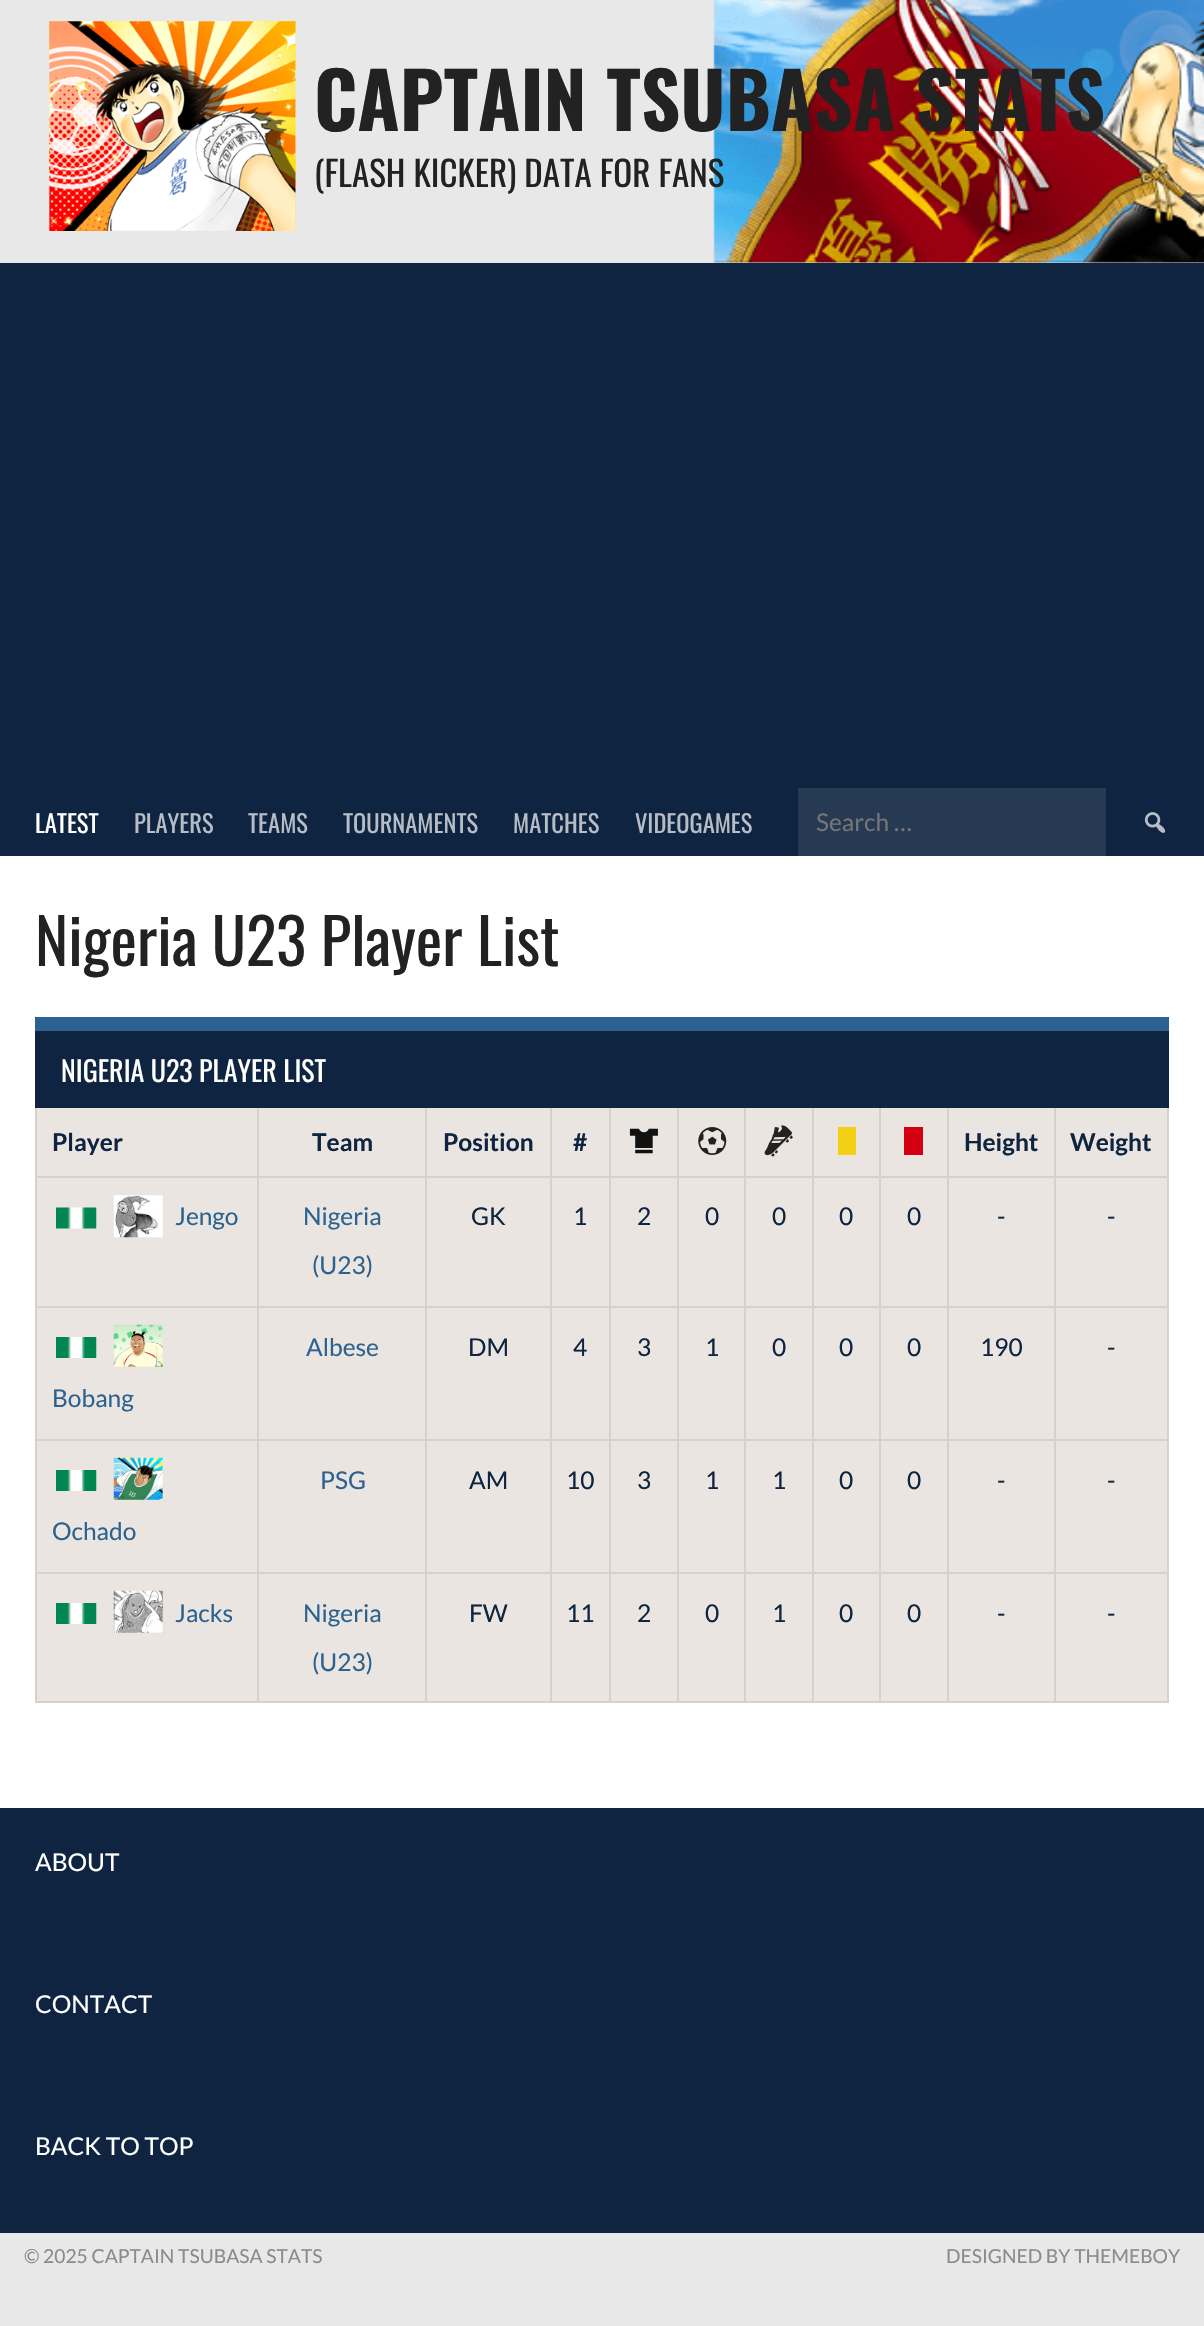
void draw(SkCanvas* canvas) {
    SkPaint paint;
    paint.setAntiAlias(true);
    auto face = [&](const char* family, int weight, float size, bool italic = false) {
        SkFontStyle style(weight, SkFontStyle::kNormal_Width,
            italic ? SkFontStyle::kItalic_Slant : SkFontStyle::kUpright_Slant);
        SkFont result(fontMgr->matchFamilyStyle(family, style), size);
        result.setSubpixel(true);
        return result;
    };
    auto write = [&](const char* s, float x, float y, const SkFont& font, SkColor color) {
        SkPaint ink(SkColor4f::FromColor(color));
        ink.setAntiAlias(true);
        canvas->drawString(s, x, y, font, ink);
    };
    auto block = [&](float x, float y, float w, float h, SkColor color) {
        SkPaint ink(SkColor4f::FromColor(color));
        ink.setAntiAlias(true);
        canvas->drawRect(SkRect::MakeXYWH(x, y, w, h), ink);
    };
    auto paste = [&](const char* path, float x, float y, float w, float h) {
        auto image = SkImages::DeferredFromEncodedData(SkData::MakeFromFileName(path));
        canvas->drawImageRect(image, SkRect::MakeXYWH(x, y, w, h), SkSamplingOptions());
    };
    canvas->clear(SkColorSetRGB(232, 232, 232));
    paste("pic1.png", 713, 0, 491, 263);
    canvas->save();
    canvas->clipPath(SkPathBuilder(SkPathFillType::kEvenOdd).moveTo(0, 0).lineTo(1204, 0).lineTo(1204, 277).lineTo(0, 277).close().moveTo(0, 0).lineTo(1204, 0).lineTo(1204, 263).lineTo(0, 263).close().detach(), true);
    paint.setColor(SkColorSetARGB(51, 0, 0, 0));
    paint.setMaskFilter(SkMaskFilter::MakeBlur(kNormal_SkBlurStyle, 2.5f));
    canvas->drawRect(SkRect::MakeXYWH(0, 5, 1204, 263), paint);
    paint.setMaskFilter(nullptr);
    canvas->restore();
    paste("pic2.png", 49, 21, 247, 210);
    auto kFont1 = face("Oswald", 700, 77);
    write("CAPTAIN TSUBASA STATS", 314, 131, kFont1, SkColorSetRGB(34, 34, 34));
    auto kFont2 = face("Oswald", 400, 35);
    write("(FLASH KICKER) DATA FOR FANS", 314, 187, kFont2, SkColorSetRGB(34, 34, 34));
    block(0, 263, 1204, 593, SkColorSetRGB(14, 36, 64));
    auto kFont3 = face("Oswald", 400, 24.5f);
    write("LATEST", 35, 833, kFont3, SK_ColorWHITE);
    write("PLAYERS", 134, 833, kFont3, SkColorSetRGB(183, 189, 198));
    write("TEAMS", 248, 833, kFont3, SkColorSetRGB(183, 189, 198));
    write("TOURNAMENTS", 343, 833, kFont3, SkColorSetRGB(183, 189, 198));
    write("MATCHES", 513, 833, kFont3, SkColorSetRGB(183, 189, 198));
    write("VIDEOGAMES", 635, 833, kFont3, SkColorSetRGB(183, 189, 198));
    block(798, 788, 308, 68, SkColorSetRGB(38, 58, 83));
    auto kFont4 = face("Lato", 400, 24.5f);
    write("Search …", 816, 831, kFont4, SkColorSetRGB(117, 117, 117));
    paste("pic3.png", 1144, 812, 22, 21);
    block(0, 856, 1204, 952, SK_ColorWHITE);
    auto kFont5 = face("Oswald", 400, 63);
    write("Nigeria U23 Player List", 35, 966, kFont5, SkColorSetRGB(34, 34, 34));
    block(1167, 1106, 2, 597, SkColorSetRGB(214, 209, 204));
    block(35, 1701, 1134, 2, SkColorSetRGB(214, 209, 204));
    block(35, 1106, 2, 597, SkColorSetRGB(214, 209, 204));
    block(37, 1108, 1130, 593, SkColorSetRGB(234, 229, 224));
    block(1054, 1176, 115, 2, SkColorSetRGB(214, 209, 204));
    block(1054, 1306, 115, 2, SkColorSetRGB(214, 209, 204));
    block(1054, 1439, 115, 2, SkColorSetRGB(214, 209, 204));
    block(1054, 1572, 115, 2, SkColorSetRGB(214, 209, 204));
    block(1054, 1572, 2, 131, SkColorSetRGB(214, 209, 204));
    block(947, 1572, 108, 2, SkColorSetRGB(214, 209, 204));
    block(1054, 1439, 2, 134, SkColorSetRGB(214, 209, 204));
    block(947, 1439, 108, 2, SkColorSetRGB(214, 209, 204));
    block(1054, 1306, 2, 134, SkColorSetRGB(214, 209, 204));
    block(947, 1306, 108, 2, SkColorSetRGB(214, 209, 204));
    block(1054, 1176, 2, 131, SkColorSetRGB(214, 209, 204));
    block(947, 1176, 108, 2, SkColorSetRGB(214, 209, 204));
    block(947, 1572, 2, 131, SkColorSetRGB(214, 209, 204));
    block(879, 1572, 70, 2, SkColorSetRGB(214, 209, 204));
    block(947, 1439, 2, 134, SkColorSetRGB(214, 209, 204));
    block(879, 1439, 70, 2, SkColorSetRGB(214, 209, 204));
    block(947, 1306, 2, 134, SkColorSetRGB(214, 209, 204));
    block(879, 1306, 70, 2, SkColorSetRGB(214, 209, 204));
    block(947, 1176, 2, 131, SkColorSetRGB(214, 209, 204));
    block(879, 1176, 70, 2, SkColorSetRGB(214, 209, 204));
    block(879, 1572, 2, 131, SkColorSetRGB(214, 209, 204));
    block(812, 1572, 68, 2, SkColorSetRGB(214, 209, 204));
    block(879, 1439, 2, 134, SkColorSetRGB(214, 209, 204));
    block(812, 1439, 68, 2, SkColorSetRGB(214, 209, 204));
    block(879, 1306, 2, 134, SkColorSetRGB(214, 209, 204));
    block(812, 1306, 68, 2, SkColorSetRGB(214, 209, 204));
    block(879, 1176, 2, 131, SkColorSetRGB(214, 209, 204));
    block(812, 1176, 68, 2, SkColorSetRGB(214, 209, 204));
    block(812, 1572, 2, 131, SkColorSetRGB(214, 209, 204));
    block(744, 1572, 70, 2, SkColorSetRGB(214, 209, 204));
    block(812, 1439, 2, 134, SkColorSetRGB(214, 209, 204));
    block(744, 1439, 70, 2, SkColorSetRGB(214, 209, 204));
    block(812, 1306, 2, 134, SkColorSetRGB(214, 209, 204));
    block(744, 1306, 70, 2, SkColorSetRGB(214, 209, 204));
    block(812, 1176, 2, 131, SkColorSetRGB(214, 209, 204));
    block(744, 1176, 70, 2, SkColorSetRGB(214, 209, 204));
    block(744, 1572, 2, 131, SkColorSetRGB(214, 209, 204));
    block(677, 1572, 69, 2, SkColorSetRGB(214, 209, 204));
    block(744, 1439, 2, 134, SkColorSetRGB(214, 209, 204));
    block(677, 1439, 69, 2, SkColorSetRGB(214, 209, 204));
    block(744, 1306, 2, 134, SkColorSetRGB(214, 209, 204));
    block(677, 1306, 69, 2, SkColorSetRGB(214, 209, 204));
    block(744, 1176, 2, 131, SkColorSetRGB(214, 209, 204));
    block(677, 1176, 69, 2, SkColorSetRGB(214, 209, 204));
    block(677, 1572, 2, 131, SkColorSetRGB(214, 209, 204));
    block(609, 1572, 70, 2, SkColorSetRGB(214, 209, 204));
    block(677, 1439, 2, 134, SkColorSetRGB(214, 209, 204));
    block(609, 1439, 70, 2, SkColorSetRGB(214, 209, 204));
    block(677, 1306, 2, 134, SkColorSetRGB(214, 209, 204));
    block(609, 1306, 70, 2, SkColorSetRGB(214, 209, 204));
    block(677, 1176, 2, 131, SkColorSetRGB(214, 209, 204));
    block(609, 1176, 70, 2, SkColorSetRGB(214, 209, 204));
    block(609, 1572, 2, 131, SkColorSetRGB(214, 209, 204));
    block(550, 1572, 61, 2, SkColorSetRGB(214, 209, 204));
    block(609, 1439, 2, 134, SkColorSetRGB(214, 209, 204));
    block(550, 1439, 61, 2, SkColorSetRGB(214, 209, 204));
    block(609, 1306, 2, 134, SkColorSetRGB(214, 209, 204));
    block(550, 1306, 61, 2, SkColorSetRGB(214, 209, 204));
    block(609, 1176, 2, 131, SkColorSetRGB(214, 209, 204));
    block(550, 1176, 61, 2, SkColorSetRGB(214, 209, 204));
    block(550, 1572, 2, 131, SkColorSetRGB(214, 209, 204));
    block(425, 1572, 126, 2, SkColorSetRGB(214, 209, 204));
    block(550, 1439, 2, 134, SkColorSetRGB(214, 209, 204));
    block(425, 1439, 126, 2, SkColorSetRGB(214, 209, 204));
    block(550, 1306, 2, 134, SkColorSetRGB(214, 209, 204));
    block(425, 1306, 126, 2, SkColorSetRGB(214, 209, 204));
    block(550, 1176, 2, 131, SkColorSetRGB(214, 209, 204));
    block(425, 1176, 126, 2, SkColorSetRGB(214, 209, 204));
    block(425, 1572, 2, 131, SkColorSetRGB(214, 209, 204));
    block(257, 1572, 170, 2, SkColorSetRGB(214, 209, 204));
    block(425, 1439, 2, 134, SkColorSetRGB(214, 209, 204));
    block(257, 1439, 170, 2, SkColorSetRGB(214, 209, 204));
    block(425, 1306, 2, 134, SkColorSetRGB(214, 209, 204));
    block(257, 1306, 170, 2, SkColorSetRGB(214, 209, 204));
    block(425, 1176, 2, 131, SkColorSetRGB(214, 209, 204));
    block(257, 1176, 170, 2, SkColorSetRGB(214, 209, 204));
    block(257, 1572, 2, 131, SkColorSetRGB(214, 209, 204));
    block(35, 1572, 224, 2, SkColorSetRGB(214, 209, 204));
    block(257, 1439, 2, 134, SkColorSetRGB(214, 209, 204));
    block(35, 1439, 224, 2, SkColorSetRGB(214, 209, 204));
    block(257, 1306, 2, 134, SkColorSetRGB(214, 209, 204));
    block(35, 1306, 224, 2, SkColorSetRGB(214, 209, 204));
    block(257, 1176, 2, 131, SkColorSetRGB(214, 209, 204));
    block(35, 1176, 224, 2, SkColorSetRGB(214, 209, 204));
    block(257, 1106, 2, 72, SkColorSetRGB(214, 209, 204));
    block(425, 1106, 2, 72, SkColorSetRGB(214, 209, 204));
    block(550, 1106, 2, 72, SkColorSetRGB(214, 209, 204));
    block(609, 1106, 2, 72, SkColorSetRGB(214, 209, 204));
    block(677, 1106, 2, 72, SkColorSetRGB(214, 209, 204));
    block(744, 1106, 2, 72, SkColorSetRGB(214, 209, 204));
    block(812, 1106, 2, 72, SkColorSetRGB(214, 209, 204));
    block(879, 1106, 2, 72, SkColorSetRGB(214, 209, 204));
    block(947, 1106, 2, 72, SkColorSetRGB(214, 209, 204));
    block(1054, 1106, 2, 72, SkColorSetRGB(214, 209, 204));
    block(35, 1031, 1134, 77, SkColorSetRGB(14, 36, 64));
    block(35, 1017, 1134, 14, SkColorSetRGB(43, 98, 145));
    auto kFont6 = face("Oswald", 400, 28);
    write("NIGERIA U23 PLAYER LIST", 61, 1082, kFont6, SK_ColorWHITE);
    auto kFont7 = face("Lato", 700, 24.5f);
    write("Player", 52, 1151, kFont7, SkColorSetRGB(14, 36, 64));
    write("Team", 312, 1151, kFont7, SkColorSetRGB(14, 36, 64));
    write("Position", 443, 1151, kFont7, SkColorSetRGB(14, 36, 64));
    write("#", 573, 1151, kFont7, SkColorSetRGB(14, 36, 64));
    paste("pic4.png", 629, 1128, 29, 26);
    paste("pic5.png", 698, 1127, 29, 28);
    paste("pic6.png", 764, 1125, 29, 32);
    block(838, 1127, 18, 28, SkColorSetRGB(244, 208, 20));
    block(904, 1127, 19, 28, SkColorSetRGB(212, 0, 15));
    write("Height", 964, 1151, kFont7, SkColorSetRGB(14, 36, 64));
    write("Weight", 1070, 1151, kFont7, SkColorSetRGB(14, 36, 64));
    paste("pic7.png", 56, 1207, 41, 22);
    paste("pic8.png", 113, 1195, 50, 43);
    write("Jengo", 175, 1225, kFont4, SkColorSetRGB(43, 98, 145));
    write("Nigeria", 303, 1225, kFont4, SkColorSetRGB(43, 98, 145));
    write("(U23)", 312, 1274, kFont4, SkColorSetRGB(43, 98, 145));
    write("GK", 471, 1225, kFont4, SkColorSetRGB(14, 36, 64));
    write("1", 573, 1225, kFont4, SkColorSetRGB(14, 36, 64));
    write("2", 637, 1225, kFont4, SkColorSetRGB(14, 36, 64));
    write("0", 705, 1225, kFont4, SkColorSetRGB(14, 36, 64));
    write("0", 772, 1225, kFont4, SkColorSetRGB(14, 36, 64));
    write("0", 839, 1225, kFont4, SkColorSetRGB(14, 36, 64));
    write("0", 907, 1225, kFont4, SkColorSetRGB(14, 36, 64));
    write("-", 997, 1225, kFont4, SkColorSetRGB(14, 36, 64));
    write("-", 1107, 1225, kFont4, SkColorSetRGB(14, 36, 64));
    write("Albese", 306, 1356, kFont4, SkColorSetRGB(43, 98, 145));
    write("DM", 468, 1356, kFont4, SkColorSetRGB(14, 36, 64));
    write("4", 573, 1356, kFont4, SkColorSetRGB(14, 36, 64));
    write("3", 637, 1356, kFont4, SkColorSetRGB(14, 36, 64));
    write("1", 705, 1356, kFont4, SkColorSetRGB(14, 36, 64));
    write("0", 772, 1356, kFont4, SkColorSetRGB(14, 36, 64));
    write("0", 839, 1356, kFont4, SkColorSetRGB(14, 36, 64));
    write("0", 907, 1356, kFont4, SkColorSetRGB(14, 36, 64));
    write("190", 980, 1356, kFont4, SkColorSetRGB(14, 36, 64));
    write("-", 1107, 1356, kFont4, SkColorSetRGB(14, 36, 64));
    paste("pic9.png", 56, 1337, 41, 21);
    paste("pic10.png", 113, 1324, 50, 43);
    write("Bobang", 52, 1407, kFont4, SkColorSetRGB(43, 98, 145));
    write("PSG", 320, 1489, kFont4, SkColorSetRGB(43, 98, 145));
    write("AM", 469, 1489, kFont4, SkColorSetRGB(14, 36, 64));
    write("10", 566, 1489, kFont4, SkColorSetRGB(14, 36, 64));
    write("3", 637, 1489, kFont4, SkColorSetRGB(14, 36, 64));
    write("1", 705, 1489, kFont4, SkColorSetRGB(14, 36, 64));
    write("1", 772, 1489, kFont4, SkColorSetRGB(14, 36, 64));
    write("0", 839, 1489, kFont4, SkColorSetRGB(14, 36, 64));
    write("0", 907, 1489, kFont4, SkColorSetRGB(14, 36, 64));
    write("-", 997, 1489, kFont4, SkColorSetRGB(14, 36, 64));
    write("-", 1107, 1489, kFont4, SkColorSetRGB(14, 36, 64));
    paste("pic9.png", 56, 1470, 41, 21);
    paste("pic11.png", 113, 1457, 50, 43);
    write("Ochado", 52, 1540, kFont4, SkColorSetRGB(43, 98, 145));
    paste("pic9.png", 56, 1603, 41, 21);
    paste("pic12.png", 113, 1590, 50, 43);
    write("Jacks", 175, 1622, kFont4, SkColorSetRGB(43, 98, 145));
    write("Nigeria", 303, 1622, kFont4, SkColorSetRGB(43, 98, 145));
    write("(U23)", 312, 1671, kFont4, SkColorSetRGB(43, 98, 145));
    write("FW", 469, 1622, kFont4, SkColorSetRGB(14, 36, 64));
    write("11", 566, 1622, kFont4, SkColorSetRGB(14, 36, 64));
    write("2", 637, 1622, kFont4, SkColorSetRGB(14, 36, 64));
    write("0", 705, 1622, kFont4, SkColorSetRGB(14, 36, 64));
    write("1", 772, 1622, kFont4, SkColorSetRGB(14, 36, 64));
    write("0", 839, 1622, kFont4, SkColorSetRGB(14, 36, 64));
    write("0", 907, 1622, kFont4, SkColorSetRGB(14, 36, 64));
    write("-", 997, 1622, kFont4, SkColorSetRGB(14, 36, 64));
    write("-", 1107, 1622, kFont4, SkColorSetRGB(14, 36, 64));
    block(0, 1808, 1204, 425, SkColorSetRGB(14, 36, 64));
    write("ABOUT", 35, 1871, kFont4, SK_ColorWHITE);
    write("CONTACT", 35, 2013, kFont4, SK_ColorWHITE);
    write("BACK TO TOP", 35, 2155, kFont4, SK_ColorWHITE);
    auto kFont8 = face("Lato", 400, 19.25f);
    write("© 2025 CAPTAIN TSUBASA STATS", 24, 2263, kFont8, SkColorSetRGB(139, 139, 139));
    write("DESIGNED BY THEMEBOY", 946, 2263, kFont8, SkColorSetRGB(139, 139, 139));
}
